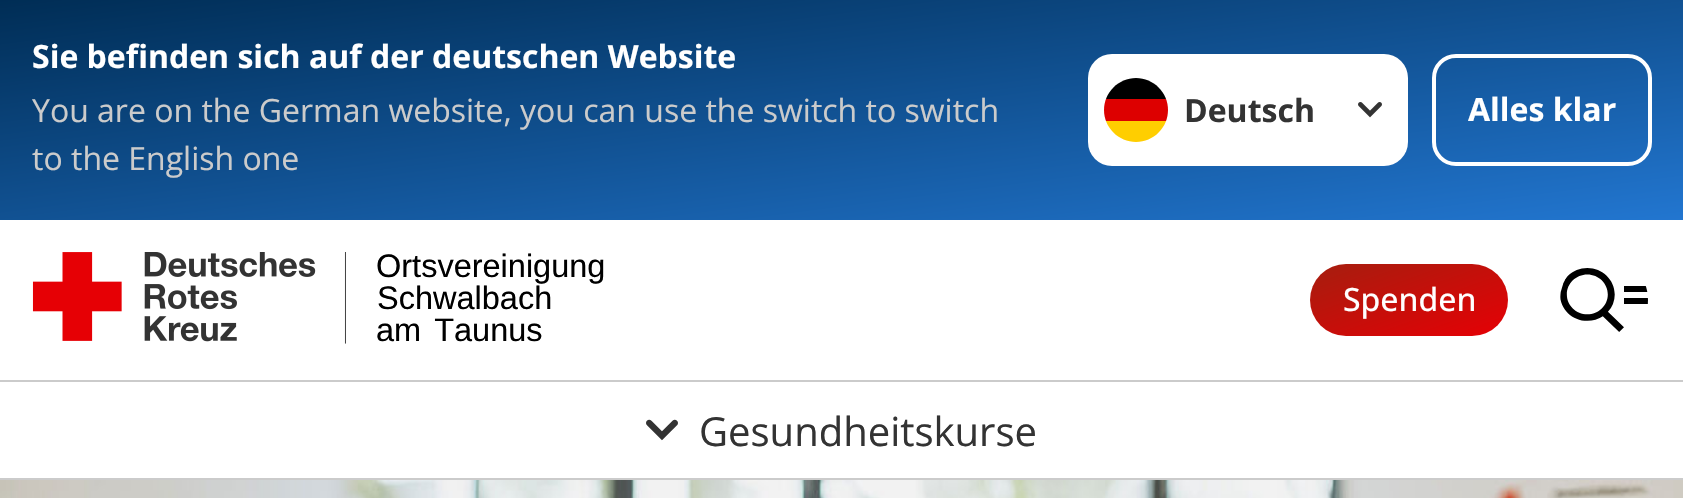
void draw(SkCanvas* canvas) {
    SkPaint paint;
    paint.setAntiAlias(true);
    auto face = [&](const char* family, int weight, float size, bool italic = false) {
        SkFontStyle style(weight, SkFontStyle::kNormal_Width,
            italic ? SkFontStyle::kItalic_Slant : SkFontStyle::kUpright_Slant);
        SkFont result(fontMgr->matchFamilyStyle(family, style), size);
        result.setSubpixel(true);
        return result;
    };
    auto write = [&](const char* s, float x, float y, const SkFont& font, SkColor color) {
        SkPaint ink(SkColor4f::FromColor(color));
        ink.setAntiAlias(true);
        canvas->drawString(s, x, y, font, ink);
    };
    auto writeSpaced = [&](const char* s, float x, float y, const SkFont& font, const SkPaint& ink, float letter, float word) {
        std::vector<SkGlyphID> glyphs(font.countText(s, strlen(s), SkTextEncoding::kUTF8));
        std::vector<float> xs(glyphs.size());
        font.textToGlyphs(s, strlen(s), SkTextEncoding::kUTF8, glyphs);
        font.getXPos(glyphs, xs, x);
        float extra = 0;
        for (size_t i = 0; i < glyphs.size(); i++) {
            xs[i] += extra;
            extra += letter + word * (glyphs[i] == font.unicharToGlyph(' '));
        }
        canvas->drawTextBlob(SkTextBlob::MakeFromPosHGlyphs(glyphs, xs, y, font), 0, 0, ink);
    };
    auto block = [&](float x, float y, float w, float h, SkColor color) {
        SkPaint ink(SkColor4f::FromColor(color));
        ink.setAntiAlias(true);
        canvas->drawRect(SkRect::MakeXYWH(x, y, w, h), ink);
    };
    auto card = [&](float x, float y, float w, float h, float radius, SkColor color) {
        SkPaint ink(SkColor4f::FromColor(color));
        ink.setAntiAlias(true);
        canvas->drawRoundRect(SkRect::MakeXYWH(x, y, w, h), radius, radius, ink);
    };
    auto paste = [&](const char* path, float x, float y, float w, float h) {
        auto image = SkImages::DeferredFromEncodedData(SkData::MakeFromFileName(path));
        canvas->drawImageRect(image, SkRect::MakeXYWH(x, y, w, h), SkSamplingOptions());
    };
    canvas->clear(SK_ColorWHITE);
    {
        const SkColor colors[] = {SkColorSetRGB(0, 45, 85), SkColorSetRGB(34, 118, 208)};
        const float stops[] = {0, 1};
        const SkPoint ends[] = {{814, -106}, {870, 326}};
        paint.setShader(SkGradientShader::MakeLinear(ends, colors, stops, 2, SkTileMode::kClamp));
        paint.setAlpha(255);
    }
    canvas->drawRect(SkRect::MakeXYWH(0, 0, 1683, 220), paint);
    auto kFont1 = face("Open Sans", 700, 32);
    write("Sie befinden sich auf der deutschen Website", 32, 68, kFont1, SK_ColorWHITE);
    auto kFont2 = face("Open Sans", 400, 32);
    write("You are on the German website, you can use the switch to switch", 32, 122, kFont2, SkColorSetRGB(203, 203, 203));
    write("to the English one", 32, 170, kFont2, SkColorSetRGB(203, 203, 203));
    card(1088, 54, 320, 112, 24, SK_ColorWHITE);
    canvas->save();
    canvas->clipPath(SkPathBuilder().moveTo(1136, 78).cubicTo(1153.5f, 78, 1168, 92.5f, 1168, 110).cubicTo(1168, 127.5f, 1153.5f, 142, 1136, 142).cubicTo(1118.5f, 142, 1104, 127.5f, 1104, 110).cubicTo(1104, 92.5f, 1118.5f, 78, 1136, 78).close().detach(), true);
    block(1106, 121, 60, 21, SkColorSetRGB(255, 206, 0));
    block(1106, 78, 60, 21, SK_ColorBLACK);
    block(1104, 99, 64, 22, SkColorSetRGB(221, 0, 0));
    canvas->restore();
    paste("pic1.png", 1358, 102, 24, 16);
    write("Deutsch", 1184, 122, kFont1, SkColorSetRGB(51, 51, 51));
    paint.setStyle(SkPaint::kStroke_Style);
    paint.setStrokeWidth(4);
    paint.setShader(nullptr);
    paint.setColor(SK_ColorWHITE);
    canvas->drawRoundRect(SkRect::MakeXYWH(1434, 56, 216, 108), 22, 22, paint);
    write("Alles klar", 1468, 121, kFont1, SK_ColorWHITE);
    block(0, 380, 1683, 2, SkColorSetRGB(203, 203, 203));
    paste("pic2.png", 32, 252, 314, 92);
    auto kFont3 = face("Liberation Sans", 400, 32.5f);
    write("Ortsvereinigung", 376, 277, kFont3, SK_ColorBLACK);
    write("Schwalbach", 377, 309, kFont3, SK_ColorBLACK);
    paint.setStyle(SkPaint::kFill_Style);
    paint.setColor(SK_ColorBLACK);
    writeSpaced("am Taunus", 376, 341, kFont3, paint, 0, 4);
    {
        const SkColor colors[] = {SkColorSetRGB(165, 30, 15), SkColorSetRGB(230, 0, 5)};
        const float stops[] = {0, 1};
        const SkPoint ends[] = {{1386, 236}, {1432, 364}};
        paint.setShader(SkGradientShader::MakeLinear(ends, colors, stops, 2, SkTileMode::kClamp));
        paint.setAlpha(255);
    }
    canvas->drawRoundRect(SkRect::MakeXYWH(1310, 264, 198, 72), 36, 36, paint);
    auto kFont4 = face("Open Sans", 500, 32);
    write("Spenden", 1343, 311, kFont4, SK_ColorWHITE);
    paste("pic3.png", 1560, 268, 64, 64);
    canvas->save();
    canvas->clipPath(SkPathBuilder().moveTo(1604, 256).cubicTo(1628.5f, 256, 1648, 275.5f, 1648, 300).cubicTo(1648, 324.5f, 1628.5f, 344, 1604, 344).cubicTo(1579.5f, 344, 1560, 324.5f, 1560, 300).cubicTo(1560, 275.5f, 1579.5f, 256, 1604, 256).close().detach(), true);
    block(1624, 286, 24, 6, SK_ColorBLACK);
    block(1624, 298, 24, 6, SK_ColorBLACK);
    canvas->restore();
    block(0, 478, 1683, 2, SkColorSetRGB(203, 203, 203));
    paste("pic4.png", 646, 419, 32, 22);
    auto kFont5 = face("Open Sans", 400, 40);
    write("Gesundheitskurse", 699, 446, kFont5, SkColorSetRGB(51, 51, 51));
    paste("pic5.png", 0, 480, 1683, 18);
}
